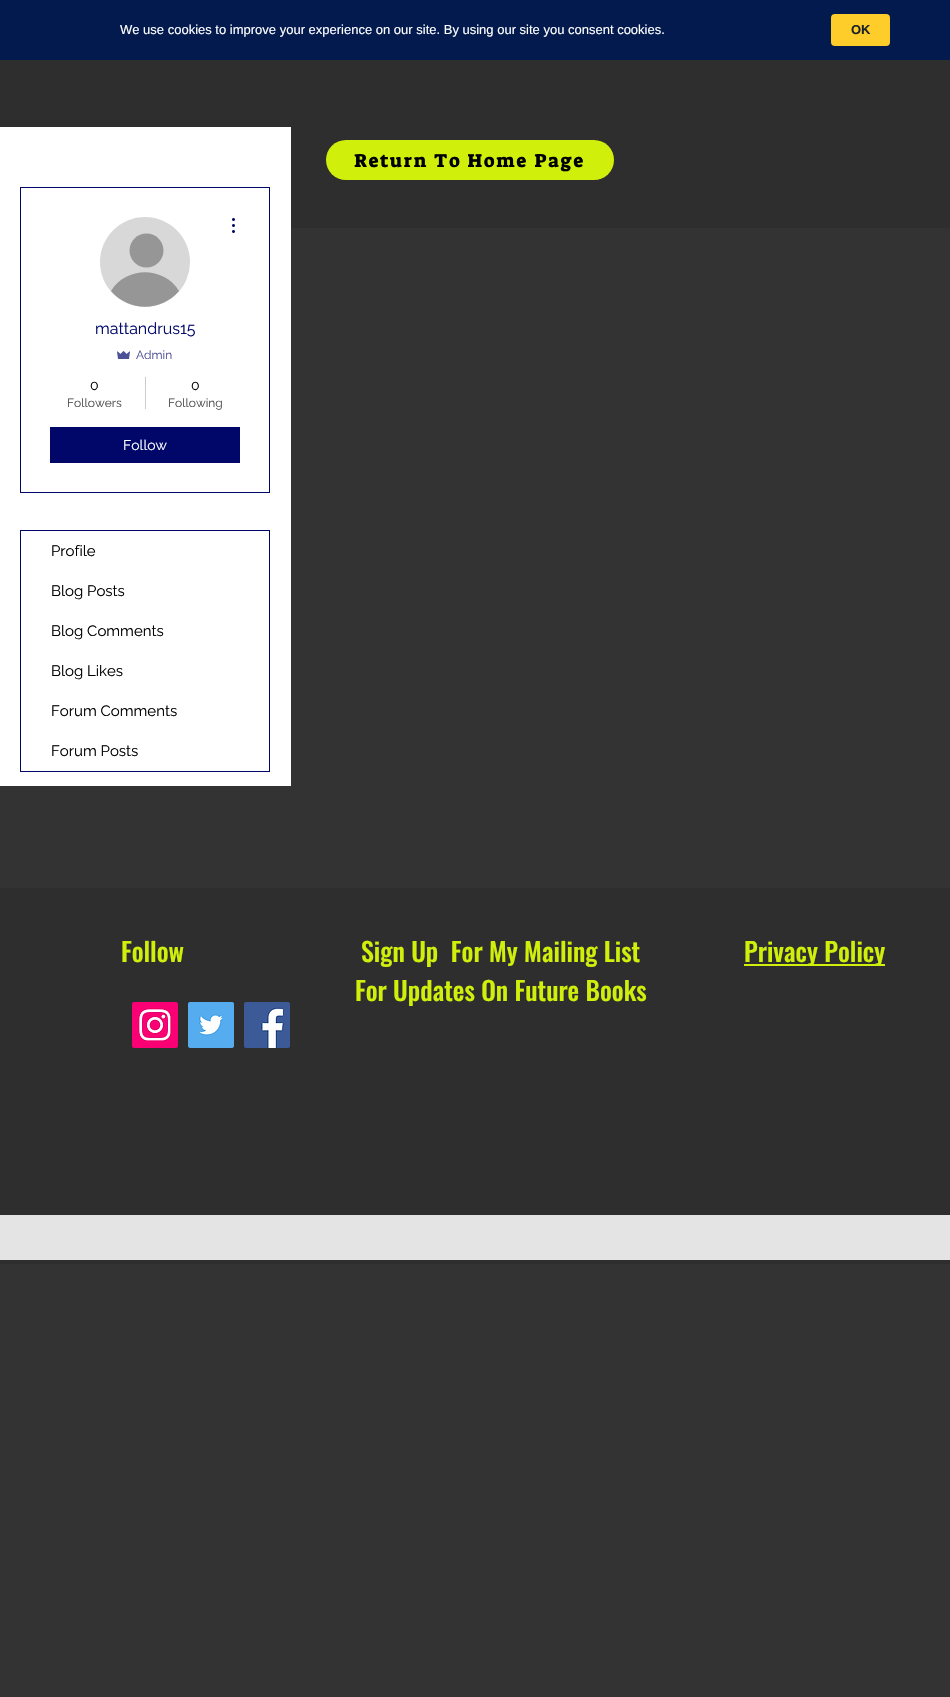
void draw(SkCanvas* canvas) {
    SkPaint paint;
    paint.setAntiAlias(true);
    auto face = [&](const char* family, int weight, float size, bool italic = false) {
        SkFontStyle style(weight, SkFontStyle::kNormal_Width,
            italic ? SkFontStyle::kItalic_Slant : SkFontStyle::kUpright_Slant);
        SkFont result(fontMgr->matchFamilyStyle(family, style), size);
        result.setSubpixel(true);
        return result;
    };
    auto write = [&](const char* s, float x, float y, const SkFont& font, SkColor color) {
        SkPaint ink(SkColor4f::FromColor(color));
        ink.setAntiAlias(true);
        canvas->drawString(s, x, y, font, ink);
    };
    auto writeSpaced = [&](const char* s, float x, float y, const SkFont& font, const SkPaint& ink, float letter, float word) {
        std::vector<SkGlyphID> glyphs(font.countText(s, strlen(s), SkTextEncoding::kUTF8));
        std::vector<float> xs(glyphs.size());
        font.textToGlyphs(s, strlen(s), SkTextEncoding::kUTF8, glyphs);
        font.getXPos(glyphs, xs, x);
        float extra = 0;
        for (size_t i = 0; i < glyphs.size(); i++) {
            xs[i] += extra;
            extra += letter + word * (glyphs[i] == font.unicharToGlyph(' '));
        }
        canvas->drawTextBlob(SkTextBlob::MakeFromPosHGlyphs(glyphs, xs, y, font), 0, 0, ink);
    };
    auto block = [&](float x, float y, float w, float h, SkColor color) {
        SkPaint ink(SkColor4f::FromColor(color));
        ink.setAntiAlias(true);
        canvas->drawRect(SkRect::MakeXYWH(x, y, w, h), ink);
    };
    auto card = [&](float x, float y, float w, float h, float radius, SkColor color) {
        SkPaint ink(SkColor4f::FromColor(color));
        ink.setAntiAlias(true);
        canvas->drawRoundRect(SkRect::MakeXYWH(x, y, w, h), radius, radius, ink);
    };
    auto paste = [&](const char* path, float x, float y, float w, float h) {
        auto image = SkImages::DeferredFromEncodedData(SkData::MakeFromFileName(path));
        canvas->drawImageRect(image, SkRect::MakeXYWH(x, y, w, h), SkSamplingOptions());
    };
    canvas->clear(SkColorSetRGB(51, 51, 51));
    block(0, 0, 950, 60, SkColorSetRGB(3, 26, 78));
    auto kFont1 = face("Liberation Sans", 400, 13);
    write("We use cookies to improve your experience on our site. By using our site you consent cookies.", 120, 34, kFont1, SK_ColorWHITE);
    card(831, 14, 59, 32, 4, SkColorSetRGB(255, 205, 41));
    auto kFont2 = face("Liberation Sans", 700, 13);
    write("OK", 851, 34, kFont2, SkColorSetRGB(29, 33, 41));
    block(0, 60, 950, 168, SkColorSetRGB(47, 46, 46));
    card(326, 140, 288, 40, 20, SkColorSetRGB(208, 240, 12));
    auto kFont3 = face("Suez One", 400, 19);
    paint.setColor(SK_ColorBLACK);
    writeSpaced("Return To Home Page", 354, 167, kFont3, paint, 1.9f, 0);
    block(0, 127, 291, 659, SK_ColorWHITE);
    paint.setStyle(SkPaint::kStroke_Style);
    paint.setStrokeWidth(1);
    paint.setColor(SkColorSetRGB(0, 7, 105));
    canvas->drawRect(SkRect::MakeXYWH(20.5f, 187.5f, 249, 305), paint);
    paint.setStyle(SkPaint::kFill_Style);
    paint.setColor(SkColorSetRGB(216, 216, 216));
    canvas->drawCircle(145, 262, 45, paint);
    paint.setColor(SkColorSetRGB(150, 150, 150));
    canvas->drawCircle(146.5f, 250.5f, 17, paint);
    canvas->drawPath(SkPathBuilder().moveTo(179, 291).cubicTo(161, 312, 129, 312, 111, 291).cubicTo(126, 266, 164, 266, 179, 291).close().detach(), paint);
    paste("pic1.png", 232, 218, 3, 15);
    auto kFont4 = face("Raleway", 400, 16);
    write("mattandrus15", 95, 334, kFont4, SkColorSetRGB(0, 7, 105));
    paste("pic2.png", 117, 351, 13, 8);
    auto kFont5 = face("Raleway", 400, 12);
    write("Admin", 136, 359, kFont5, SkColorSetRGB(77, 81, 150));
    auto kFont6 = face("Raleway", 400, 14);
    write("0", 90, 390, kFont6, SK_ColorBLACK);
    write("Followers", 67, 407, kFont5, SkColorSetRGB(77, 77, 77));
    block(145, 377, 1, 32, SkColorSetRGB(204, 204, 204));
    write("0", 191, 390, kFont6, SK_ColorBLACK);
    write("Following", 168, 407, kFont5, SkColorSetRGB(77, 77, 77));
    block(50, 427, 190, 36, SkColorSetRGB(0, 7, 105));
    write("Follow", 123, 450, kFont6, SK_ColorWHITE);
    paint.setStyle(SkPaint::kStroke_Style);
    paint.setColor(SkColorSetRGB(0, 7, 105));
    canvas->drawRect(SkRect::MakeXYWH(20.5f, 530.5f, 249, 241), paint);
    auto kFont7 = face("Raleway", 400, 15);
    write("Profile", 51, 556, kFont7, SK_ColorBLACK);
    write("Blog Posts", 51, 596, kFont7, SK_ColorBLACK);
    write("Blog Comments", 51, 636, kFont7, SK_ColorBLACK);
    write("Blog Likes", 51, 676, kFont7, SK_ColorBLACK);
    write("Forum Comments", 51, 716, kFont7, SK_ColorBLACK);
    write("Forum Posts", 51, 756, kFont7, SK_ColorBLACK);
    block(0, 888, 950, 376, SkColorSetRGB(47, 46, 46));
    auto kFont8 = face("Oswald", 500, 26);
    write("Follow", 121, 962, kFont8, SkColorSetRGB(208, 240, 12));
    write("Sign Up  For My Mailing List", 361, 962, kFont8, SkColorSetRGB(208, 240, 12));
    write("For Updates On Future Books", 355, 1001, kFont8, SkColorSetRGB(208, 240, 12));
    block(744, 964, 141, 2, SkColorSetRGB(208, 240, 12));
    write("Privacy Policy", 744, 962, kFont8, SkColorSetRGB(208, 240, 12));
    paste("pic3.png", 132, 1002, 46, 46);
    paste("pic4.png", 188, 1002, 46, 46);
    paste("pic5.png", 244, 1002, 46, 46);
    block(0, 1215, 950, 45, SkColorSetRGB(228, 228, 228));
}
